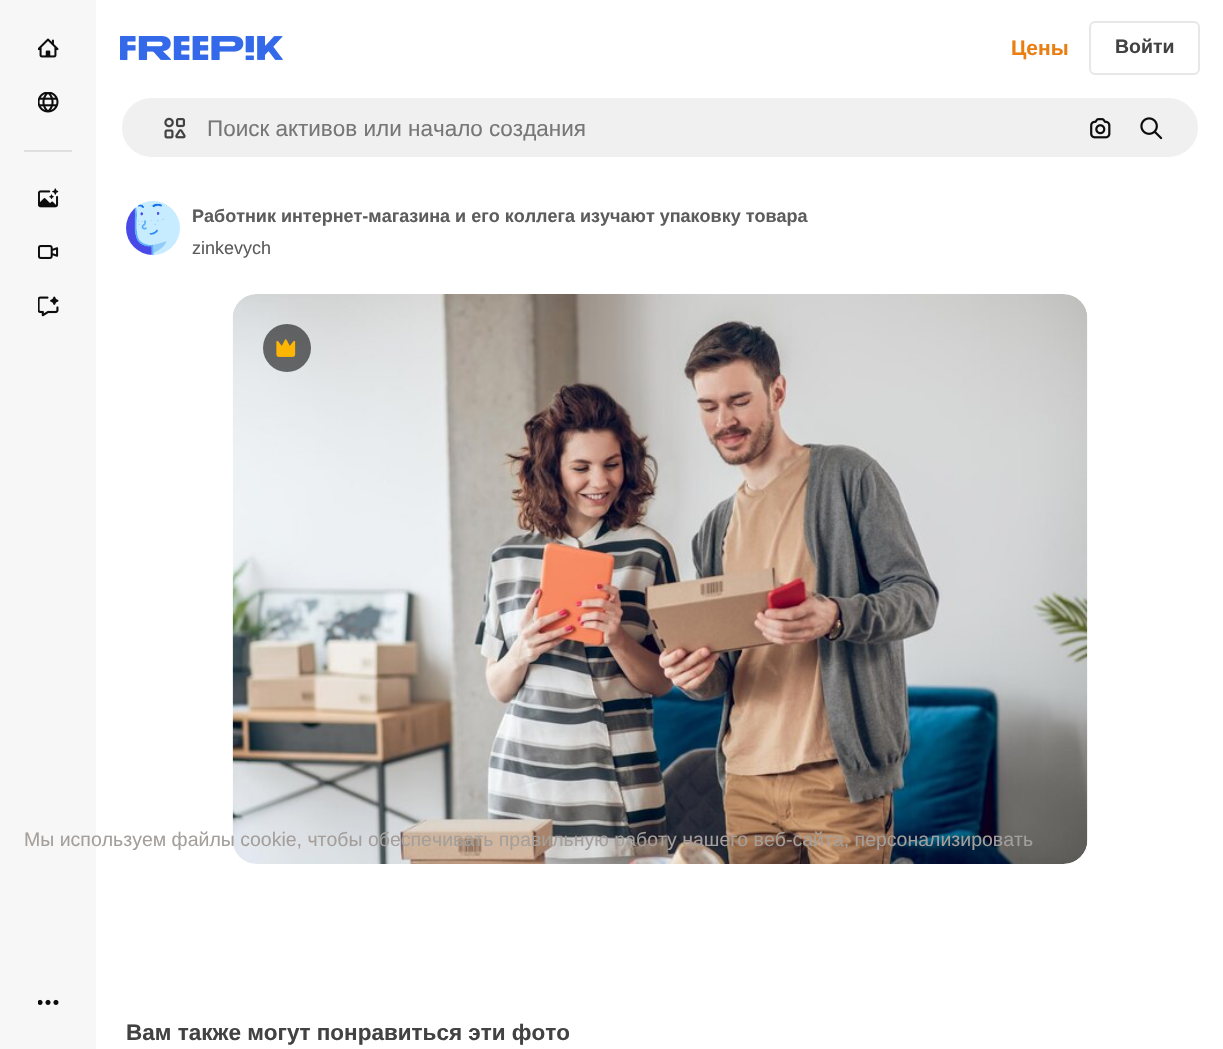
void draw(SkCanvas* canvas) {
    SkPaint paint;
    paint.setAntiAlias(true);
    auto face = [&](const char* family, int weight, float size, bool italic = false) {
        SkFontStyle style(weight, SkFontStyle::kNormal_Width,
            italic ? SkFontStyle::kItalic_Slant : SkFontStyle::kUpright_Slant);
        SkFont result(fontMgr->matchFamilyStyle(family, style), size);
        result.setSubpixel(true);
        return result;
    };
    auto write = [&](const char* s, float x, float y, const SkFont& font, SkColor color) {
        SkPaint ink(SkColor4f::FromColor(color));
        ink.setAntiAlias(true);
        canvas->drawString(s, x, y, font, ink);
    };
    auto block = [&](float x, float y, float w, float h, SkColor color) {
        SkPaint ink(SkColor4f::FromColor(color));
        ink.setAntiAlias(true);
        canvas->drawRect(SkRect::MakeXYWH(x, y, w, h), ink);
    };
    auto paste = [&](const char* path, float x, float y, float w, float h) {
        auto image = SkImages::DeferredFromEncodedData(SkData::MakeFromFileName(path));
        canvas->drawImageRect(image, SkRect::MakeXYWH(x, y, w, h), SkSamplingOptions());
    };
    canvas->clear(SK_ColorWHITE);
    block(0, 0, 96, 1049, SkColorSetRGB(247, 247, 247));
    paste("pic1.png", 38, 38, 21, 20);
    paste("pic2.png", 38, 92, 21, 21);
    block(24, 150, 48, 2, SkColorSetRGB(224, 224, 224));
    paste("pic3.png", 38, 188, 21, 20);
    paste("pic4.png", 38, 245, 21, 14);
    paste("pic5.png", 38, 296, 21, 21);
    paste("pic6.png", 38, 999, 21, 6);
    paste("pic7.png", 120, 36, 163, 24);
    auto kFont1 = face("Liberation Sans", 700, 21);
    write("Цены", 1011, 55, kFont1, SkColorSetRGB(234, 126, 17));
    paint.setStyle(SkPaint::kStroke_Style);
    paint.setStrokeWidth(2);
    paint.setColor(SkColorSetRGB(231, 231, 231));
    canvas->drawRoundRect(SkRect::MakeXYWH(1090, 22, 109, 52), 5, 5, paint);
    auto kFont2 = face("Liberation Sans", 700, 19.5f);
    write("Войти", 1115, 53, kFont2, SkColorSetRGB(66, 66, 66));
    paint.setStyle(SkPaint::kFill_Style);
    paint.setColor(SkColorSetRGB(240, 240, 240));
    canvas->drawRoundRect(SkRect::MakeXYWH(121, 97, 1078, 61), 30.5f, 30.5f, paint);
    paint.setStyle(SkPaint::kStroke_Style);
    paint.setColor(SK_ColorWHITE);
    canvas->drawRoundRect(SkRect::MakeXYWH(121, 97, 1078, 61), 30.5f, 30.5f, paint);
    paste("pic8.png", 164, 117, 22, 22);
    auto kFont3 = face("Liberation Sans", 400, 22.5f);
    write("Поиск активов или начало создания", 207, 136, kFont3, SkColorSetRGB(119, 119, 119));
    paste("pic9.png", 1090, 118, 21, 21);
    paste("pic10.png", 1140, 117, 23, 23);
    paste("pic11.png", 126, 201, 54, 54);
    auto kFont4 = face("Liberation Sans", 700, 18);
    write("Работник интернет-магазина и его коллега изучают упаковку товара", 192, 222, kFont4, SkColorSetRGB(92, 92, 92));
    auto kFont5 = face("Liberation Sans", 400, 18);
    write("zinkevych", 192, 254, kFont5, SkColorSetRGB(92, 92, 92));
    paste("pic12.png", 232, 294, 856, 570);
    paint.setStyle(SkPaint::kFill_Style);
    paint.setColor(SkColorSetARGB(153, 13, 13, 13));
    canvas->drawCircle(287, 348, 24, paint);
    paste("pic13.png", 276, 339, 20, 18);
    auto kFont6 = face("Liberation Sans", 700, 22.5f);
    write("Вам также могут понравиться эти фото", 126, 1040, kFont6, SkColorSetRGB(66, 66, 66));
    auto kFont7 = face("Liberation Sans", 400, 19.5f);
    write("Мы используем файлы cookie, чтобы обеспечивать правильную работу нашего веб-сайта, персонализировать", 24, 846, kFont7, SkColorSetRGB(164, 159, 155));
}
